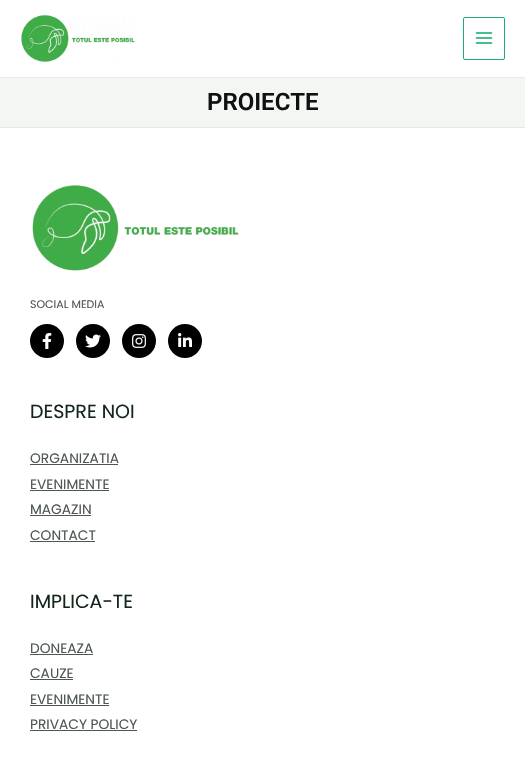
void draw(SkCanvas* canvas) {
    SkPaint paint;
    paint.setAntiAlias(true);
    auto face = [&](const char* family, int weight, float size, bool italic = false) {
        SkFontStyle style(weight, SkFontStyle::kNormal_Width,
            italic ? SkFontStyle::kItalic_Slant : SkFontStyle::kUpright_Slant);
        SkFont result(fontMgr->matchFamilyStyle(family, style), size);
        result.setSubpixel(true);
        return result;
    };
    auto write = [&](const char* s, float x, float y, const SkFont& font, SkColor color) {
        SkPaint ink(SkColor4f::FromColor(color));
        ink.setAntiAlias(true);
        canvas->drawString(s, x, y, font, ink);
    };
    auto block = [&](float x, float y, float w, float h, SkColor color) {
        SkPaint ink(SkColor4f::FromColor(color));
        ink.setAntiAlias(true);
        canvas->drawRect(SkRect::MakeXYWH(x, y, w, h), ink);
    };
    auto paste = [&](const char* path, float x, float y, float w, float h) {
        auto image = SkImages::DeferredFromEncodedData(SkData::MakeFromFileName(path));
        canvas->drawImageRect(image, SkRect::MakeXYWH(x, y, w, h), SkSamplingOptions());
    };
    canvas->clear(SkColorSetRGB(244, 246, 244));
    block(0, 0, 525, 77, SK_ColorWHITE);
    block(0, 77, 525, 1, SkColorSetRGB(234, 234, 234));
    paste("pic1.png", 21, 14, 114, 48);
    paint.setStyle(SkPaint::kStroke_Style);
    paint.setStrokeWidth(1);
    paint.setColor(SkColorSetRGB(27, 174, 112));
    canvas->drawRoundRect(SkRect::MakeXYWH(463.5f, 17.5f, 41, 42), 1.5f, 1.5f, paint);
    paste("pic2.png", 475, 32, 18, 12);
    auto kFont1 = face("Roboto", 600, 24);
    write("PROIECTE", 207, 110, kFont1, SkColorSetRGB(15, 16, 16));
    block(0, 128, 525, 645, SK_ColorWHITE);
    block(0, 127, 525, 1, SkColorSetRGB(230, 230, 230));
    paste("pic3.png", 32, 185, 207, 86);
    auto kFont2 = face("Poppins", 400, 11);
    write("SOCIAL MEDIA", 30, 308, kFont2, SkColorSetRGB(78, 86, 82));
    paint.setStyle(SkPaint::kFill_Style);
    paint.setColor(SK_ColorBLACK);
    canvas->drawCircle(47, 341, 17, paint);
    paste("pic4.png", 42, 333, 10, 16);
    canvas->drawCircle(93, 341, 17, paint);
    paste("pic5.png", 85, 334, 16, 14);
    canvas->drawCircle(139, 341, 17, paint);
    paste("pic6.png", 132, 334, 14, 14);
    canvas->drawCircle(185, 341, 17, paint);
    paste("pic7.png", 178, 333, 14, 14);
    auto kFont3 = face("Poppins", 400, 19);
    write("DESPRE NOI", 30, 418, kFont3, SkColorSetRGB(20, 38, 28));
    auto kFont4 = face("Poppins", 400, 13.75f);
    write("ORGANIZATIA", 30, 463, kFont4, SkColorSetRGB(78, 86, 82));
    block(30, 464, 88, 1, SkColorSetRGB(78, 86, 82));
    write("EVENIMENTE", 30, 489, kFont4, SkColorSetRGB(78, 86, 82));
    block(30, 490, 79, 1, SkColorSetRGB(78, 86, 82));
    write("MAGAZIN", 30, 514, kFont4, SkColorSetRGB(78, 86, 82));
    block(30, 515, 61, 1, SkColorSetRGB(78, 86, 82));
    write("CONTACT", 30, 540, kFont4, SkColorSetRGB(78, 86, 82));
    block(30, 541, 65, 1, SkColorSetRGB(78, 86, 82));
    write("IMPLICA-TE", 30, 608, kFont3, SkColorSetRGB(20, 38, 28));
    write("DONEAZA", 30, 653, kFont4, SkColorSetRGB(78, 86, 82));
    block(30, 654, 63, 1, SkColorSetRGB(78, 86, 82));
    write("CAUZE", 30, 678, kFont4, SkColorSetRGB(78, 86, 82));
    block(30, 679, 43, 1, SkColorSetRGB(78, 86, 82));
    write("EVENIMENTE", 30, 704, kFont4, SkColorSetRGB(78, 86, 82));
    block(30, 705, 79, 1, SkColorSetRGB(78, 86, 82));
    write("PRIVACY POLICY", 30, 729, kFont4, SkColorSetRGB(78, 86, 82));
    block(30, 730, 107, 1, SkColorSetRGB(78, 86, 82));
}
